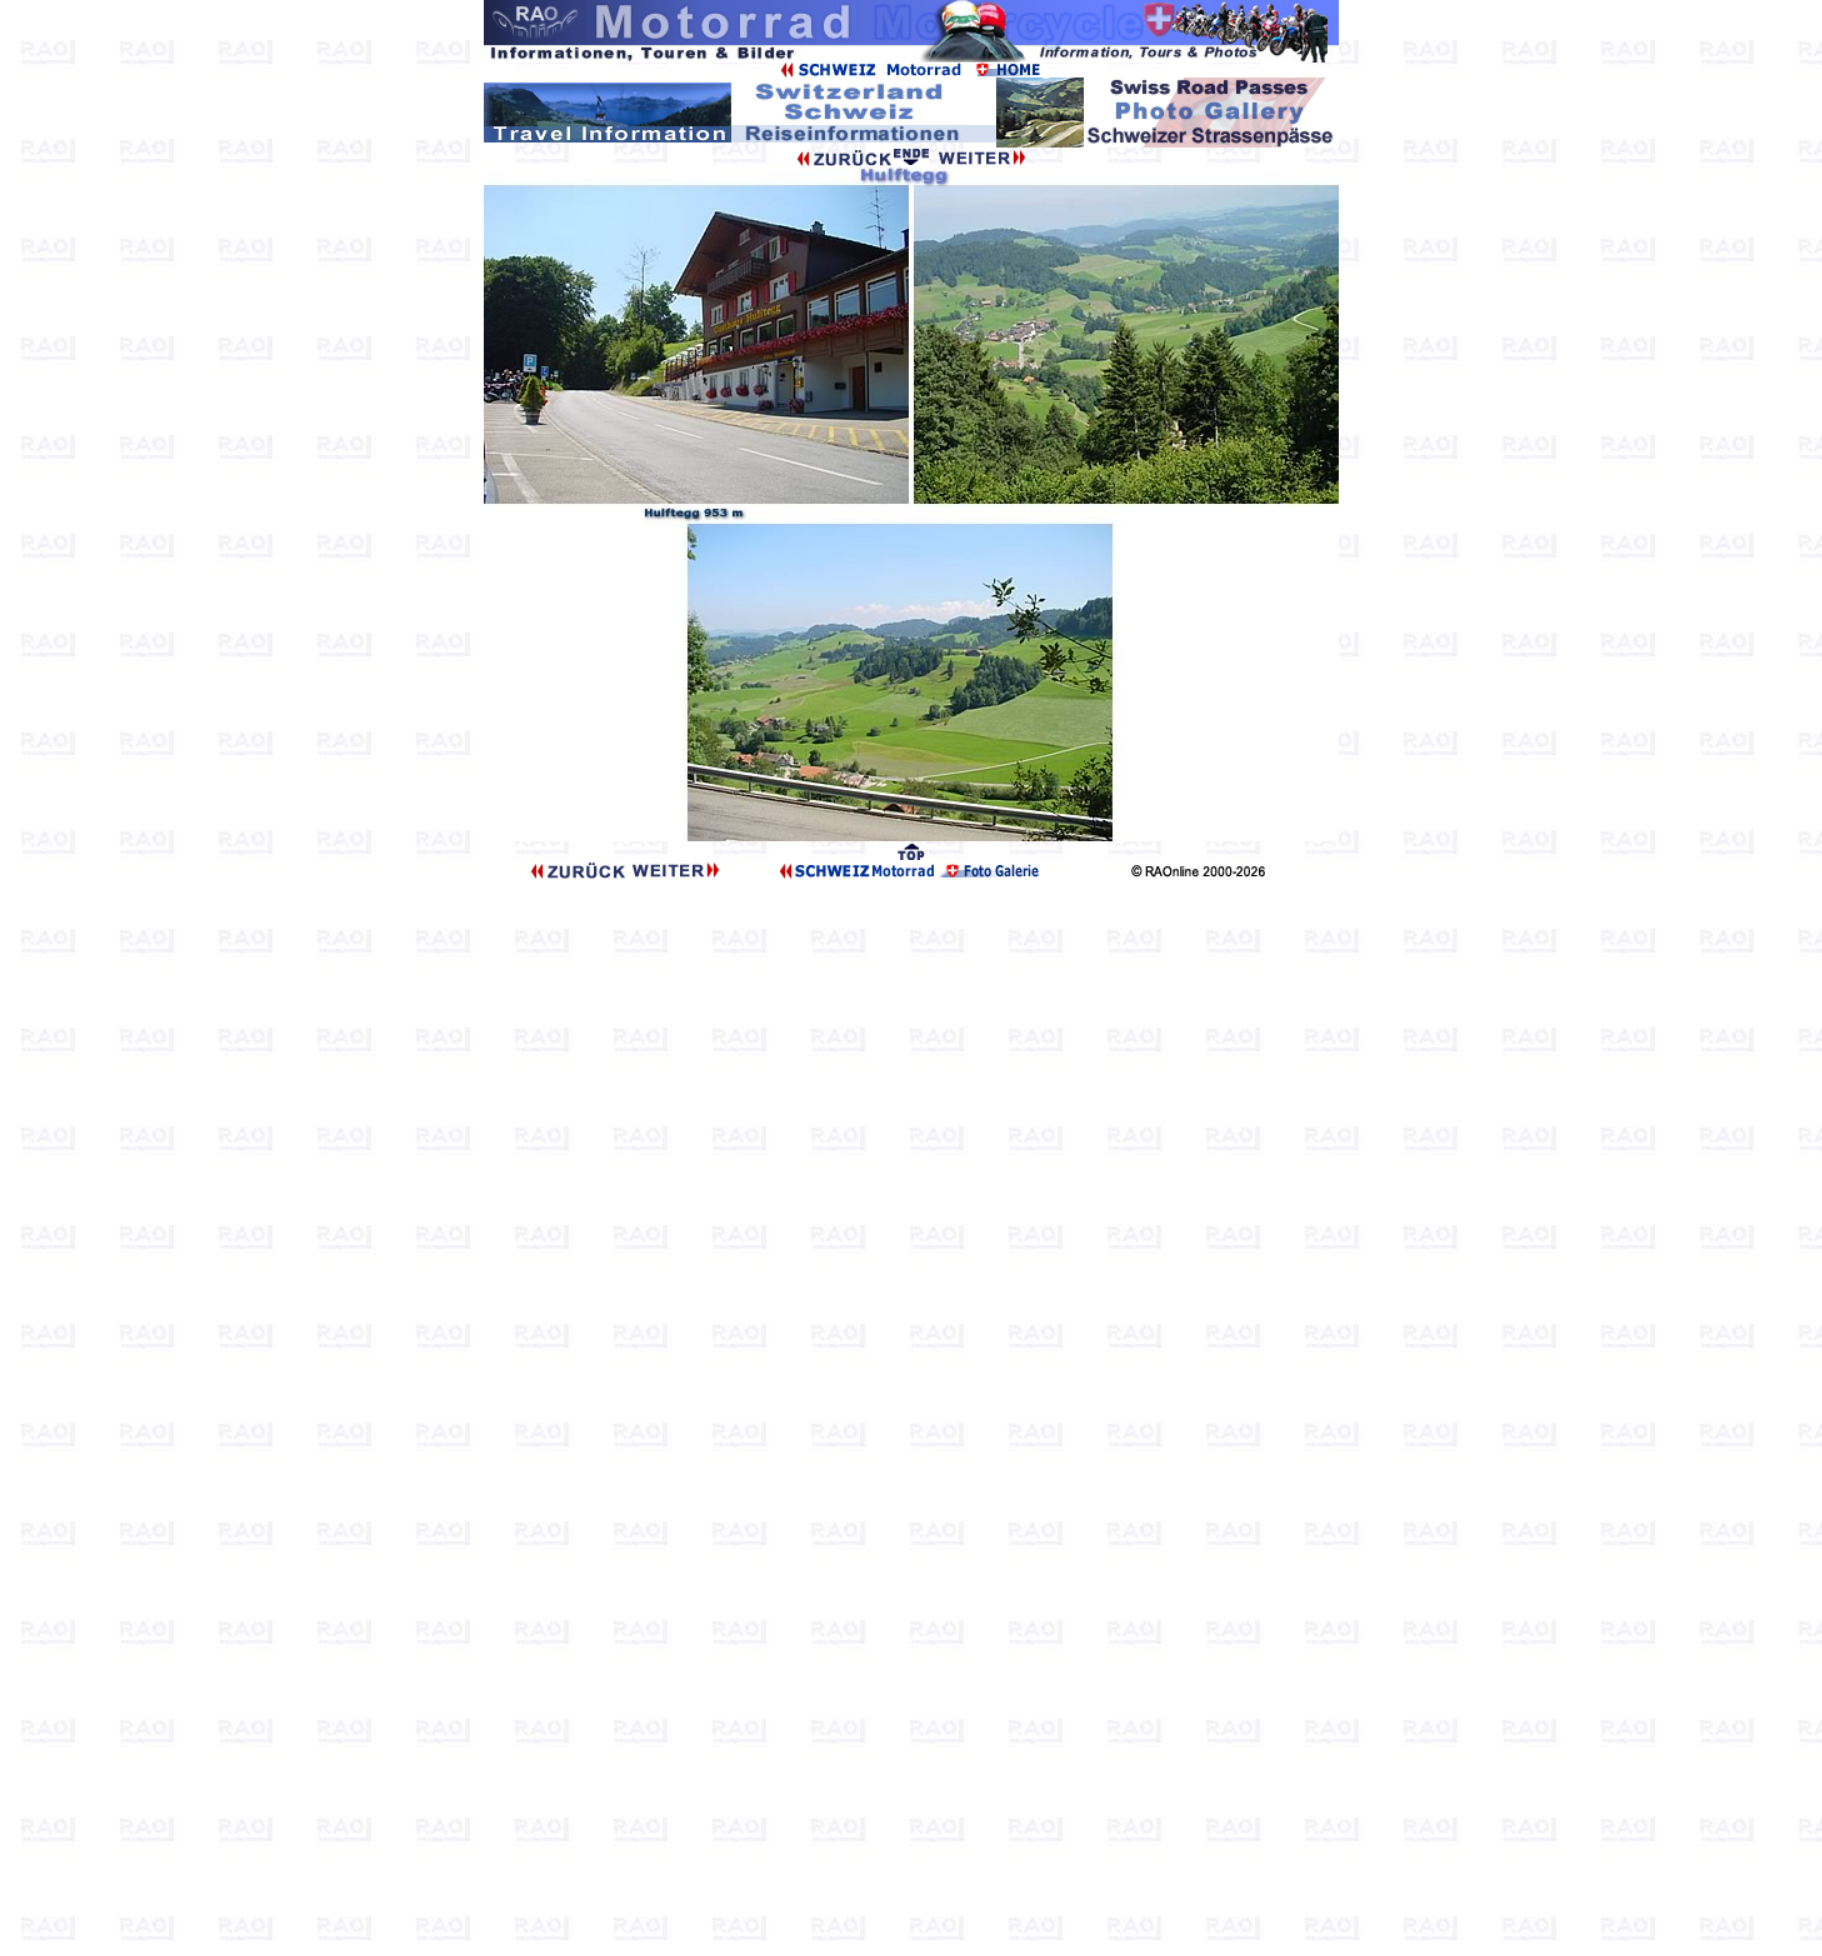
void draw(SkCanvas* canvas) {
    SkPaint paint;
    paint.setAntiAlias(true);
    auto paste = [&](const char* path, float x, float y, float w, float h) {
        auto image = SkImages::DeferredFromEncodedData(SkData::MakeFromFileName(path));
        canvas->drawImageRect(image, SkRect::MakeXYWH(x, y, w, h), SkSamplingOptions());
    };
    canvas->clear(SK_ColorWHITE);
    paste("pic1.png", 20, 40, 1802, 1901);
    paste("pic2.png", 483, 0, 856, 63);
    paste("pic3.png", 781, 62, 262, 16);
    paste("pic4.png", 483, 82, 514, 61);
    paste("pic5.png", 996, 77, 343, 71);
    paste("pic6.png", 796, 150, 96, 17);
    paste("pic7.png", 893, 148, 36, 17);
    paste("pic8.png", 938, 150, 89, 16);
    paste("pic9.png", 483, 166, 856, 676);
    paste("pic10.png", 897, 843, 32, 17);
    paste("pic11.png", 530, 862, 95, 17);
    paste("pic12.png", 632, 862, 88, 16);
    paste("pic13.png", 780, 863, 259, 16);
    paste("pic14.png", 1131, 865, 134, 13);
}
